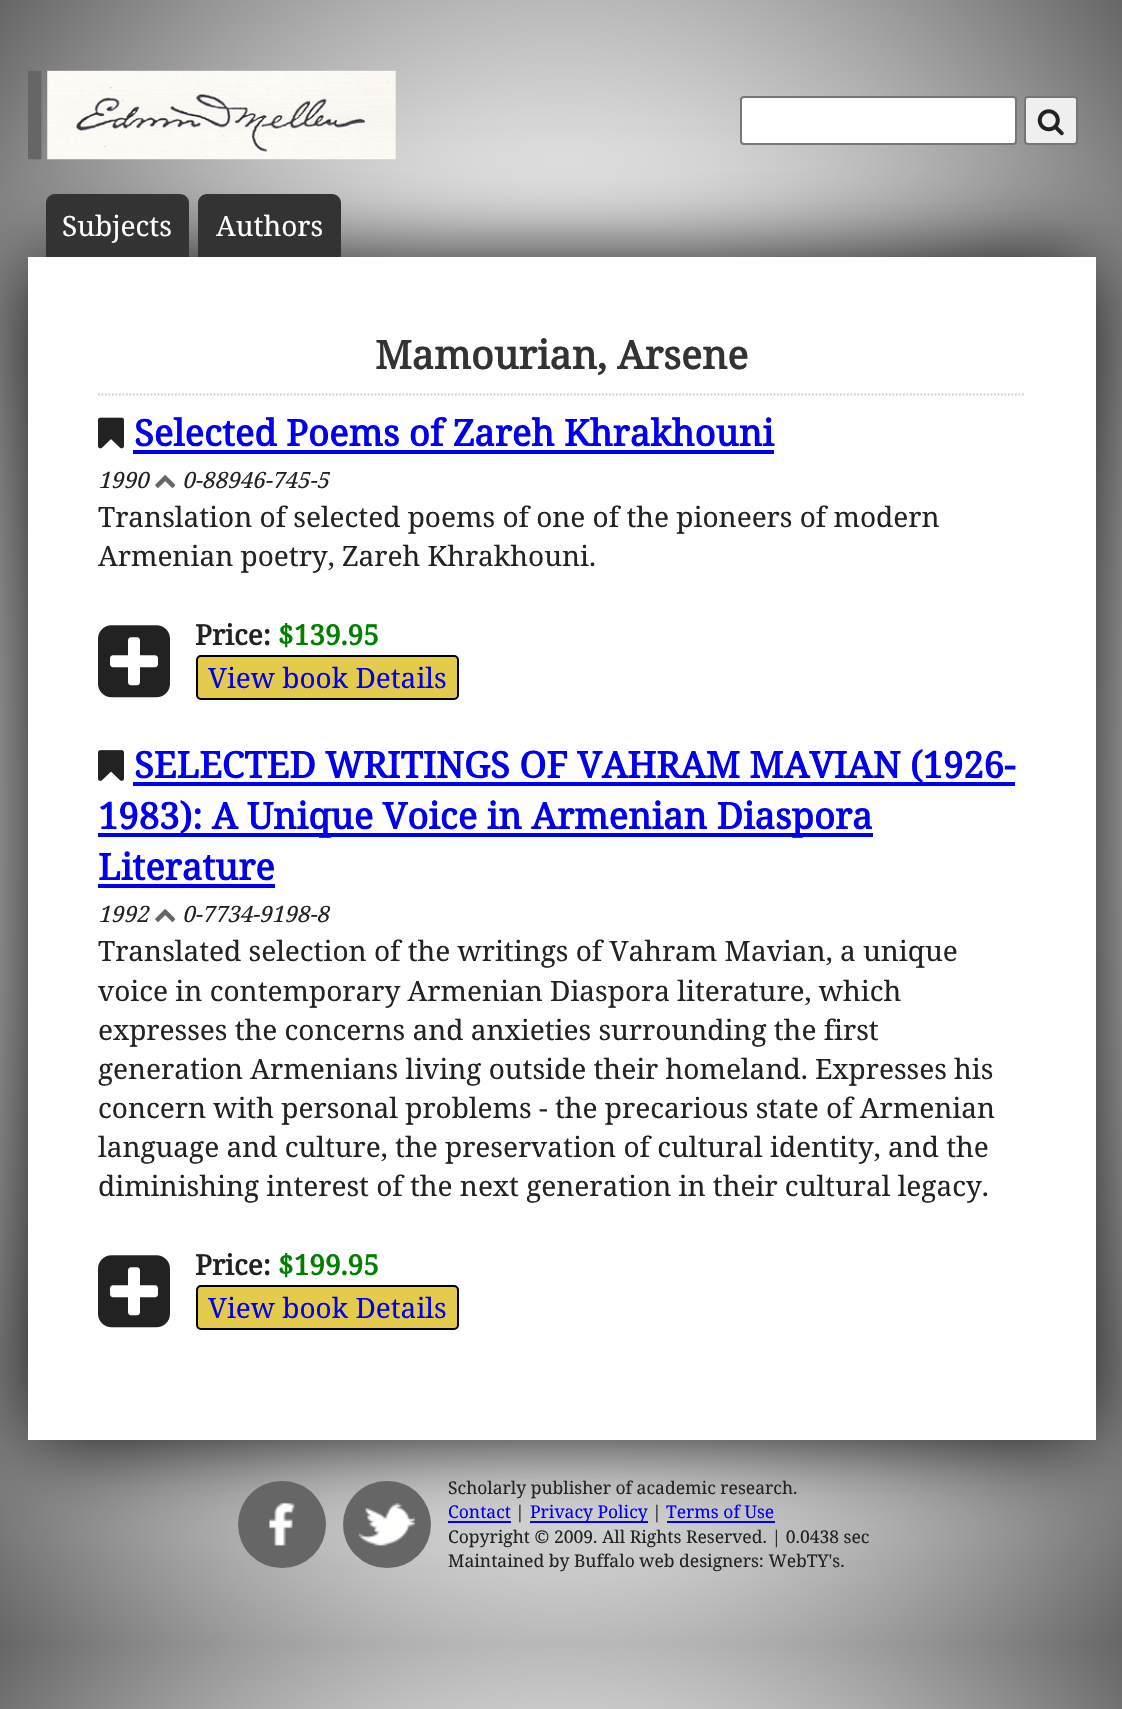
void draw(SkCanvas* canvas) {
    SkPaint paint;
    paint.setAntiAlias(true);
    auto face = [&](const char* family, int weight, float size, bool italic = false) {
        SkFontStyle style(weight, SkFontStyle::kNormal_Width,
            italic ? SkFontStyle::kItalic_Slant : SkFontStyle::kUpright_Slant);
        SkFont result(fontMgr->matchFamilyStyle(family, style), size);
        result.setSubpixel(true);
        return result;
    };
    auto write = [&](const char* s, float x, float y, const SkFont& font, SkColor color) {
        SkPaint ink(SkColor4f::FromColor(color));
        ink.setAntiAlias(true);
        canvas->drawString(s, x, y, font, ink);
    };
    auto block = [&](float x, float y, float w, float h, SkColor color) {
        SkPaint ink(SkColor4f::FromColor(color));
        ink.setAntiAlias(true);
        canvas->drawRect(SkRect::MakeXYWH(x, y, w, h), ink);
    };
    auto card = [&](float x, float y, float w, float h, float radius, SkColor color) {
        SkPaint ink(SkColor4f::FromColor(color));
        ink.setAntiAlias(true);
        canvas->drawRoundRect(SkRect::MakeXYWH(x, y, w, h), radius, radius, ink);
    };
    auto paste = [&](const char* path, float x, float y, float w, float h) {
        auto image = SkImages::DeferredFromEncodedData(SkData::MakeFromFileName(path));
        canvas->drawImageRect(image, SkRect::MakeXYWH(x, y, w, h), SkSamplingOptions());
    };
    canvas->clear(SK_ColorWHITE);
    {
        const SkColor colors[] = {SkColorSetRGB(228, 245, 252), SkColorSetRGB(237, 237, 237), SkColorSetRGB(102, 102, 102)};
        const float stops[] = {0, 0.52f, 1};
        SkMatrix m = SkMatrix::Translate(562, 822).preScale(794, 1162);
        paint.setShader(SkGradientShader::MakeRadial({0, 0}, 1, colors, stops, 3, SkTileMode::kClamp, 0, &m));
        paint.setAlpha(255);
    }
    canvas->drawRect(SkRect::MakeXYWH(0, 0, 1122, 1643), paint);
    {
        const SkColor colors[] = {SkColorSetRGB(228, 245, 252), SkColorSetRGB(237, 237, 237), SkColorSetRGB(102, 102, 102)};
        const float stops[] = {0, 0.52f, 1};
        SkMatrix m = SkMatrix::Translate(562, 2465).preScale(794, 1162);
        paint.setShader(SkGradientShader::MakeRadial({0, 0}, 1, colors, stops, 3, SkTileMode::kClamp, 0, &m));
        paint.setAlpha(255);
    }
    canvas->drawRect(SkRect::MakeXYWH(0, 1643, 1122, 66), paint);
    paint.setShader(nullptr);
    paint.setColor(SK_ColorBLACK);
    paint.setMaskFilter(SkMaskFilter::MakeBlur(kNormal_SkBlurStyle, 44));
    canvas->drawRect(SkRect::MakeXYWH(28, 257, 1068, 1183), paint);
    paint.setMaskFilter(nullptr);
    paste("pic1.png", 28, 70, 368, 90);
    paint.setColor(SK_ColorWHITE);
    canvas->drawRoundRect(SkRect::MakeXYWH(741, 97, 275, 47), 3, 3, paint);
    paint.setStyle(SkPaint::kStroke_Style);
    paint.setStrokeWidth(2);
    paint.setColor(SkColorSetRGB(118, 118, 118));
    canvas->drawRoundRect(SkRect::MakeXYWH(741, 97, 275, 47), 3, 3, paint);
    paint.setStyle(SkPaint::kFill_Style);
    paint.setColor(SkColorSetRGB(239, 239, 239));
    canvas->drawRoundRect(SkRect::MakeXYWH(1025, 97, 52, 47), 3, 3, paint);
    paint.setStyle(SkPaint::kStroke_Style);
    paint.setColor(SkColorSetRGB(118, 118, 118));
    canvas->drawRoundRect(SkRect::MakeXYWH(1025, 97, 52, 47), 3, 3, paint);
    paste("pic2.png", 1037, 109, 27, 27);
    paint.setStyle(SkPaint::kFill_Style);
    paint.setColor(SkColorSetRGB(51, 51, 51));
    canvas->drawPath(SkPathBuilder().moveTo(55, 194).lineTo(180, 194).cubicTo(185, 194, 189, 198, 189, 203).lineTo(189, 257).lineTo(46, 257).lineTo(46, 203).cubicTo(46, 198, 50, 194, 55, 194).close().detach(), paint);
    auto kFont1 = face("Noto Serif", 400, 28);
    write("Subjects", 62, 236, kFont1, SK_ColorWHITE);
    canvas->drawPath(SkPathBuilder().moveTo(207, 194).lineTo(332, 194).cubicTo(337, 194, 341, 198, 341, 203).lineTo(341, 257).lineTo(198, 257).lineTo(198, 203).cubicTo(198, 198, 202, 194, 207, 194).close().detach(), paint);
    write("Authors", 216, 236, kFont1, SK_ColorWHITE);
    block(28, 257, 1068, 1183, SK_ColorWHITE);
    paint.setStyle(SkPaint::kStroke_Style);
    paint.setStrokeWidth(1.8f);
    paint.setColor(SkColorSetRGB(204, 204, 204));
    paint.setPathEffect(SkDashPathEffect::Make({{1.75f, 1.75f}}, 0));
    canvas->drawPath(SkPathBuilder().moveTo(98, 394.5f).lineTo(1025.5f, 394.5f).detach(), paint);
    paint.setPathEffect(nullptr);
    auto kFont2 = face("Noto Serif", 700, 39.25f);
    write("Mamourian, Arsene", 375, 369, kFont2, SkColorSetRGB(51, 51, 51));
    paste("pic3.png", 98, 417, 26, 32);
    auto kFont3 = face("Noto Serif", 700, 36.4f);
    write("Selected Poems of Zareh Khrakhouni", 134, 446, kFont3, SkColorSetRGB(0, 0, 238));
    block(133, 450, 641, 4, SkColorSetRGB(0, 0, 238));
    auto kFont4 = face("Noto Serif", 400, 22.5f, true);
    write("1990", 98, 488, kFont4, SkColorSetRGB(34, 34, 34));
    paste("pic4.png", 155, 475, 21, 13);
    write("0-88946-745-5", 182, 488, kFont4, SkColorSetRGB(34, 34, 34));
    write("Translation of selected poems of one of the pioneers of modern", 98, 527, kFont1, SkColorSetRGB(34, 34, 34));
    write("Armenian poetry, Zareh Khrakhouni.", 98, 566, kFont1, SkColorSetRGB(34, 34, 34));
    paste("pic5.png", 98, 625, 72, 73);
    auto kFont5 = face("Noto Serif", 700, 28);
    write("Price:", 195, 645, kFont5, SkColorSetRGB(34, 34, 34));
    write("$139.95", 278, 645, kFont5, SkColorSetRGB(0, 128, 0));
    paint.setStyle(SkPaint::kFill_Style);
    paint.setColor(SkColorSetRGB(228, 203, 76));
    canvas->drawRoundRect(SkRect::MakeXYWH(197, 656, 261, 43), 4, 4, paint);
    paint.setStyle(SkPaint::kStroke_Style);
    paint.setStrokeWidth(2);
    paint.setColor(SK_ColorBLACK);
    canvas->drawRoundRect(SkRect::MakeXYWH(197, 656, 261, 43), 4, 4, paint);
    write("View book Details", 208, 688, kFont1, SkColorSetRGB(0, 0, 238));
    paste("pic6.png", 98, 750, 26, 31);
    block(133, 782, 882, 4, SkColorSetRGB(0, 0, 238));
    write("SELECTED WRITINGS OF VAHRAM MAVIAN (1926-", 134, 778, kFont3, SkColorSetRGB(0, 0, 238));
    block(98, 833, 775, 4, SkColorSetRGB(0, 0, 238));
    write("1983): A Unique Voice in Armenian Diaspora", 98, 829, kFont3, SkColorSetRGB(0, 0, 238));
    write("Literature", 98, 880, kFont3, SkColorSetRGB(0, 0, 238));
    block(98, 884, 177, 4, SkColorSetRGB(0, 0, 238));
    write("1992", 98, 922, kFont4, SkColorSetRGB(34, 34, 34));
    paste("pic4.png", 155, 909, 21, 13);
    write("0-7734-9198-8", 182, 922, kFont4, SkColorSetRGB(34, 34, 34));
    write("Translated selection of the writings of Vahram Mavian, a unique", 98, 961, kFont1, SkColorSetRGB(34, 34, 34));
    write("voice in contemporary Armenian Diaspora literature, which", 98, 1001, kFont1, SkColorSetRGB(34, 34, 34));
    write("expresses the concerns and anxieties surrounding the first", 98, 1040, kFont1, SkColorSetRGB(34, 34, 34));
    write("generation Armenians living outside their homeland. Expresses his", 98, 1079, kFont1, SkColorSetRGB(34, 34, 34));
    write("concern with personal problems - the precarious state of Armenian", 98, 1118, kFont1, SkColorSetRGB(34, 34, 34));
    write("language and culture, the preservation of cultural identity, and the", 98, 1157, kFont1, SkColorSetRGB(34, 34, 34));
    write("diminishing interest of the next generation in their cultural legacy.", 98, 1196, kFont1, SkColorSetRGB(34, 34, 34));
    paste("pic5.png", 98, 1255, 72, 73);
    write("Price:", 195, 1275, kFont5, SkColorSetRGB(34, 34, 34));
    write("$199.95", 278, 1275, kFont5, SkColorSetRGB(0, 128, 0));
    paint.setStyle(SkPaint::kFill_Style);
    paint.setColor(SkColorSetRGB(228, 203, 76));
    canvas->drawRoundRect(SkRect::MakeXYWH(197, 1286, 261, 43), 4, 4, paint);
    paint.setStyle(SkPaint::kStroke_Style);
    paint.setColor(SK_ColorBLACK);
    canvas->drawRoundRect(SkRect::MakeXYWH(197, 1286, 261, 43), 4, 4, paint);
    write("View book Details", 208, 1318, kFont1, SkColorSetRGB(0, 0, 238));
    card(238, 1481, 88, 87, 43.5f, SkColorSetRGB(102, 102, 102));
    paste("pic7.png", 269, 1502, 26, 44);
    card(343, 1481, 88, 87, 43.5f, SkColorSetRGB(102, 102, 102));
    paste("pic8.png", 358, 1502, 57, 44);
    auto kFont6 = face("Noto Serif", 400, 17.5f);
    write("Scholarly publisher of academic research.", 448, 1494, kFont6, SkColorSetRGB(34, 34, 34));
    write("Contact", 448, 1518, kFont6, SkColorSetRGB(0, 0, 238));
    block(448, 1521, 63, 2, SkColorSetRGB(0, 0, 238));
    write("|", 515, 1518, kFont6, SkColorSetRGB(34, 34, 34));
    block(530, 1521, 118, 2, SkColorSetRGB(0, 0, 238));
    write("Privacy Policy", 530, 1518, kFont6, SkColorSetRGB(0, 0, 238));
    write("|", 652, 1518, kFont6, SkColorSetRGB(34, 34, 34));
    write("Terms of Use", 666, 1518, kFont6, SkColorSetRGB(0, 0, 238));
    block(667, 1521, 108, 2, SkColorSetRGB(0, 0, 238));
    write("Copyright © 2009. All Rights Reserved. | 0.0438 sec", 448, 1543, kFont6, SkColorSetRGB(34, 34, 34));
    write("Maintained by Buffalo web designers: WebTY's.", 448, 1567, kFont6, SkColorSetRGB(34, 34, 34));
}
